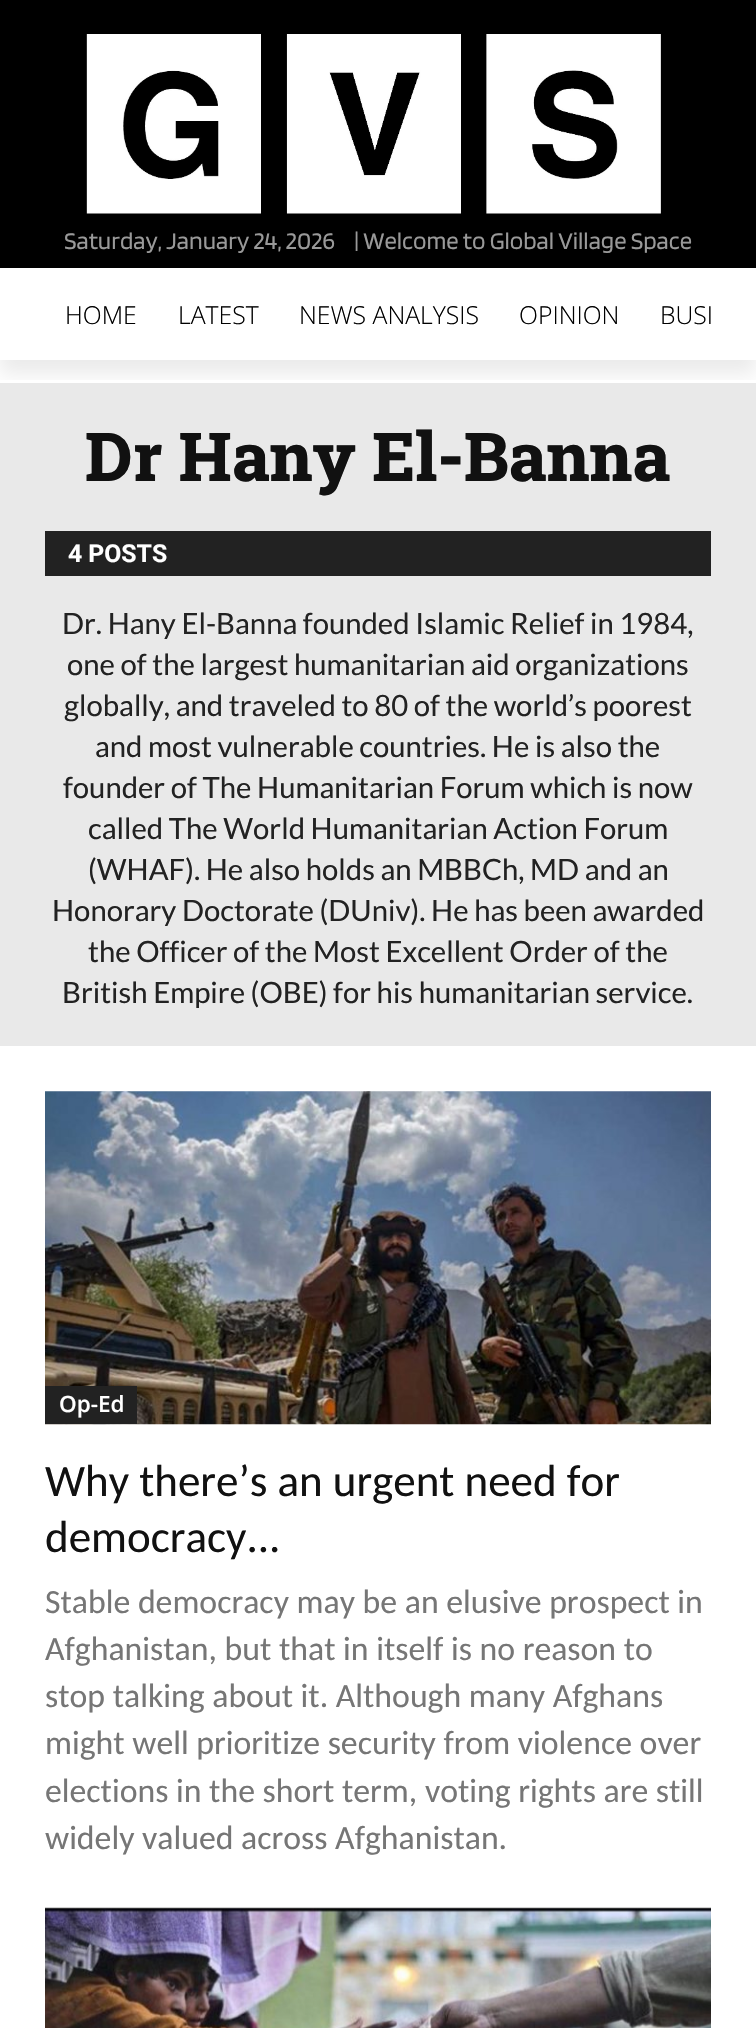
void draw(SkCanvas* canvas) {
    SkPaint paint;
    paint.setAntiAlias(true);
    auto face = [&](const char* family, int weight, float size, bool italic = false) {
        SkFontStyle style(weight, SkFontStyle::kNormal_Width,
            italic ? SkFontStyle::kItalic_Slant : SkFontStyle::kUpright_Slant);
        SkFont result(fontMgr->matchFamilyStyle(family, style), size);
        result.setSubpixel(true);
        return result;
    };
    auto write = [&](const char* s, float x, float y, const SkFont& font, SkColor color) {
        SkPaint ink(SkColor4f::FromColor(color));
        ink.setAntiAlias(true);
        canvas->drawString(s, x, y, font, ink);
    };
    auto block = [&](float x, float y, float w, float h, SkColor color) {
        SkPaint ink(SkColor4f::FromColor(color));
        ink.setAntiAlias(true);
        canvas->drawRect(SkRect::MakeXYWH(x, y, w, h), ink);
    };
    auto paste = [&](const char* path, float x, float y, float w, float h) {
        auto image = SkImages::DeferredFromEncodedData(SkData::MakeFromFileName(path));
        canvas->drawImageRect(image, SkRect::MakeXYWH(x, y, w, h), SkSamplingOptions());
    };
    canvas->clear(SK_ColorWHITE);
    block(0, 0, 756, 268, SK_ColorBLACK);
    paste("pic1.png", 86, 34, 575, 180);
    block(0, 383, 756, 663, SkColorSetRGB(233, 233, 233));
    canvas->save();
    canvas->clipRect(SkRect::MakeXYWH(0, 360, 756, 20));
    paint.setColor(SkColorSetARGB(20, 0, 0, 0));
    paint.setMaskFilter(SkMaskFilter::MakeBlur(kNormal_SkBlurStyle, 9));
    canvas->drawRect(SkRect::MakeXYWH(0, 14, 756, 360), paint);
    paint.setMaskFilter(nullptr);
    canvas->restore();
    auto kFont1 = face("Blinker", 400, 24.75f);
    write("Saturday, January 24, 2026", 64, 249, kFont1, SkColorSetRGB(153, 153, 153));
    write("| Welcome to Global Village Space", 354, 249, kFont1, SkColorSetRGB(153, 153, 153));
    auto kFont2 = face("Open Sans", 300, 24.75f);
    write("HOME", 65, 324, kFont2, SK_ColorBLACK);
    write("LATEST", 178, 324, kFont2, SK_ColorBLACK);
    write("NEWS ANALYSIS", 299, 324, kFont2, SK_ColorBLACK);
    write("OPINION", 519, 324, kFont2, SK_ColorBLACK);
    write("BUSI", 660, 324, kFont2, SK_ColorBLACK);
    auto kFont3 = face("Roboto Slab", 800, 67.5f);
    write("Dr Hany El-Banna", 85, 481, kFont3, SkColorSetRGB(17, 17, 17));
    block(45, 531, 666, 45, SkColorSetRGB(34, 34, 34));
    auto kFont4 = face("Roboto", 700, 24.75f);
    write("4 POSTS", 68, 562, kFont4, SK_ColorWHITE);
    auto kFont5 = face("Lato", 400, 29.25f);
    write("Dr. Hany El-Banna founded Islamic Relief in 1984,", 62, 634, kFont5, SkColorSetRGB(34, 34, 34));
    write("one of the largest humanitarian aid organizations", 67, 675, kFont5, SkColorSetRGB(34, 34, 34));
    write("globally, and traveled to 80 of the world’s poorest", 64, 716, kFont5, SkColorSetRGB(34, 34, 34));
    write("and most vulnerable countries. He is also the", 95, 757, kFont5, SkColorSetRGB(34, 34, 34));
    write("founder of The Humanitarian Forum which is now", 63, 798, kFont5, SkColorSetRGB(34, 34, 34));
    write("called The World Humanitarian Action Forum", 88, 839, kFont5, SkColorSetRGB(34, 34, 34));
    write("(WHAF). He also holds an MBBCh, MD and an", 88, 880, kFont5, SkColorSetRGB(34, 34, 34));
    write("Honorary Doctorate (DUniv). He has been awarded", 52, 921, kFont5, SkColorSetRGB(34, 34, 34));
    write("the Officer of the Most Excellent Order of the", 88, 962, kFont5, SkColorSetRGB(34, 34, 34));
    write("British Empire (OBE) for his humanitarian service.", 62, 1003, kFont5, SkColorSetRGB(34, 34, 34));
    paste("pic2.png", 45, 1091, 666, 334);
    block(45, 1386, 92, 38, SkColorSetRGB(34, 34, 34));
    auto kFont6 = face("Open Sans", 600, 22.5f);
    write("Op-Ed", 59, 1412, kFont6, SK_ColorWHITE);
    auto kFont7 = face("Carlito", 400, 45);
    write("Why there’s an urgent need for", 45, 1496, kFont7, SkColorSetRGB(17, 17, 17));
    write("democracy...", 45, 1552, kFont7, SkColorSetRGB(17, 17, 17));
    auto kFont8 = face("Carlito", 400, 33.75f);
    write("Stable democracy may be an elusive prospect in", 45, 1613, kFont8, SkColorSetRGB(118, 118, 118));
    write("Afghanistan, but that in itself is no reason to", 45, 1660, kFont8, SkColorSetRGB(118, 118, 118));
    write("stop talking about it. Although many Afghans", 45, 1707, kFont8, SkColorSetRGB(118, 118, 118));
    write("might well prioritize security from violence over", 45, 1754, kFont8, SkColorSetRGB(118, 118, 118));
    write("elections in the short term, voting rights are still", 45, 1802, kFont8, SkColorSetRGB(118, 118, 118));
    write("widely valued across Afghanistan.", 45, 1849, kFont8, SkColorSetRGB(118, 118, 118));
    paste("pic3.png", 45, 1907, 666, 121);
}
